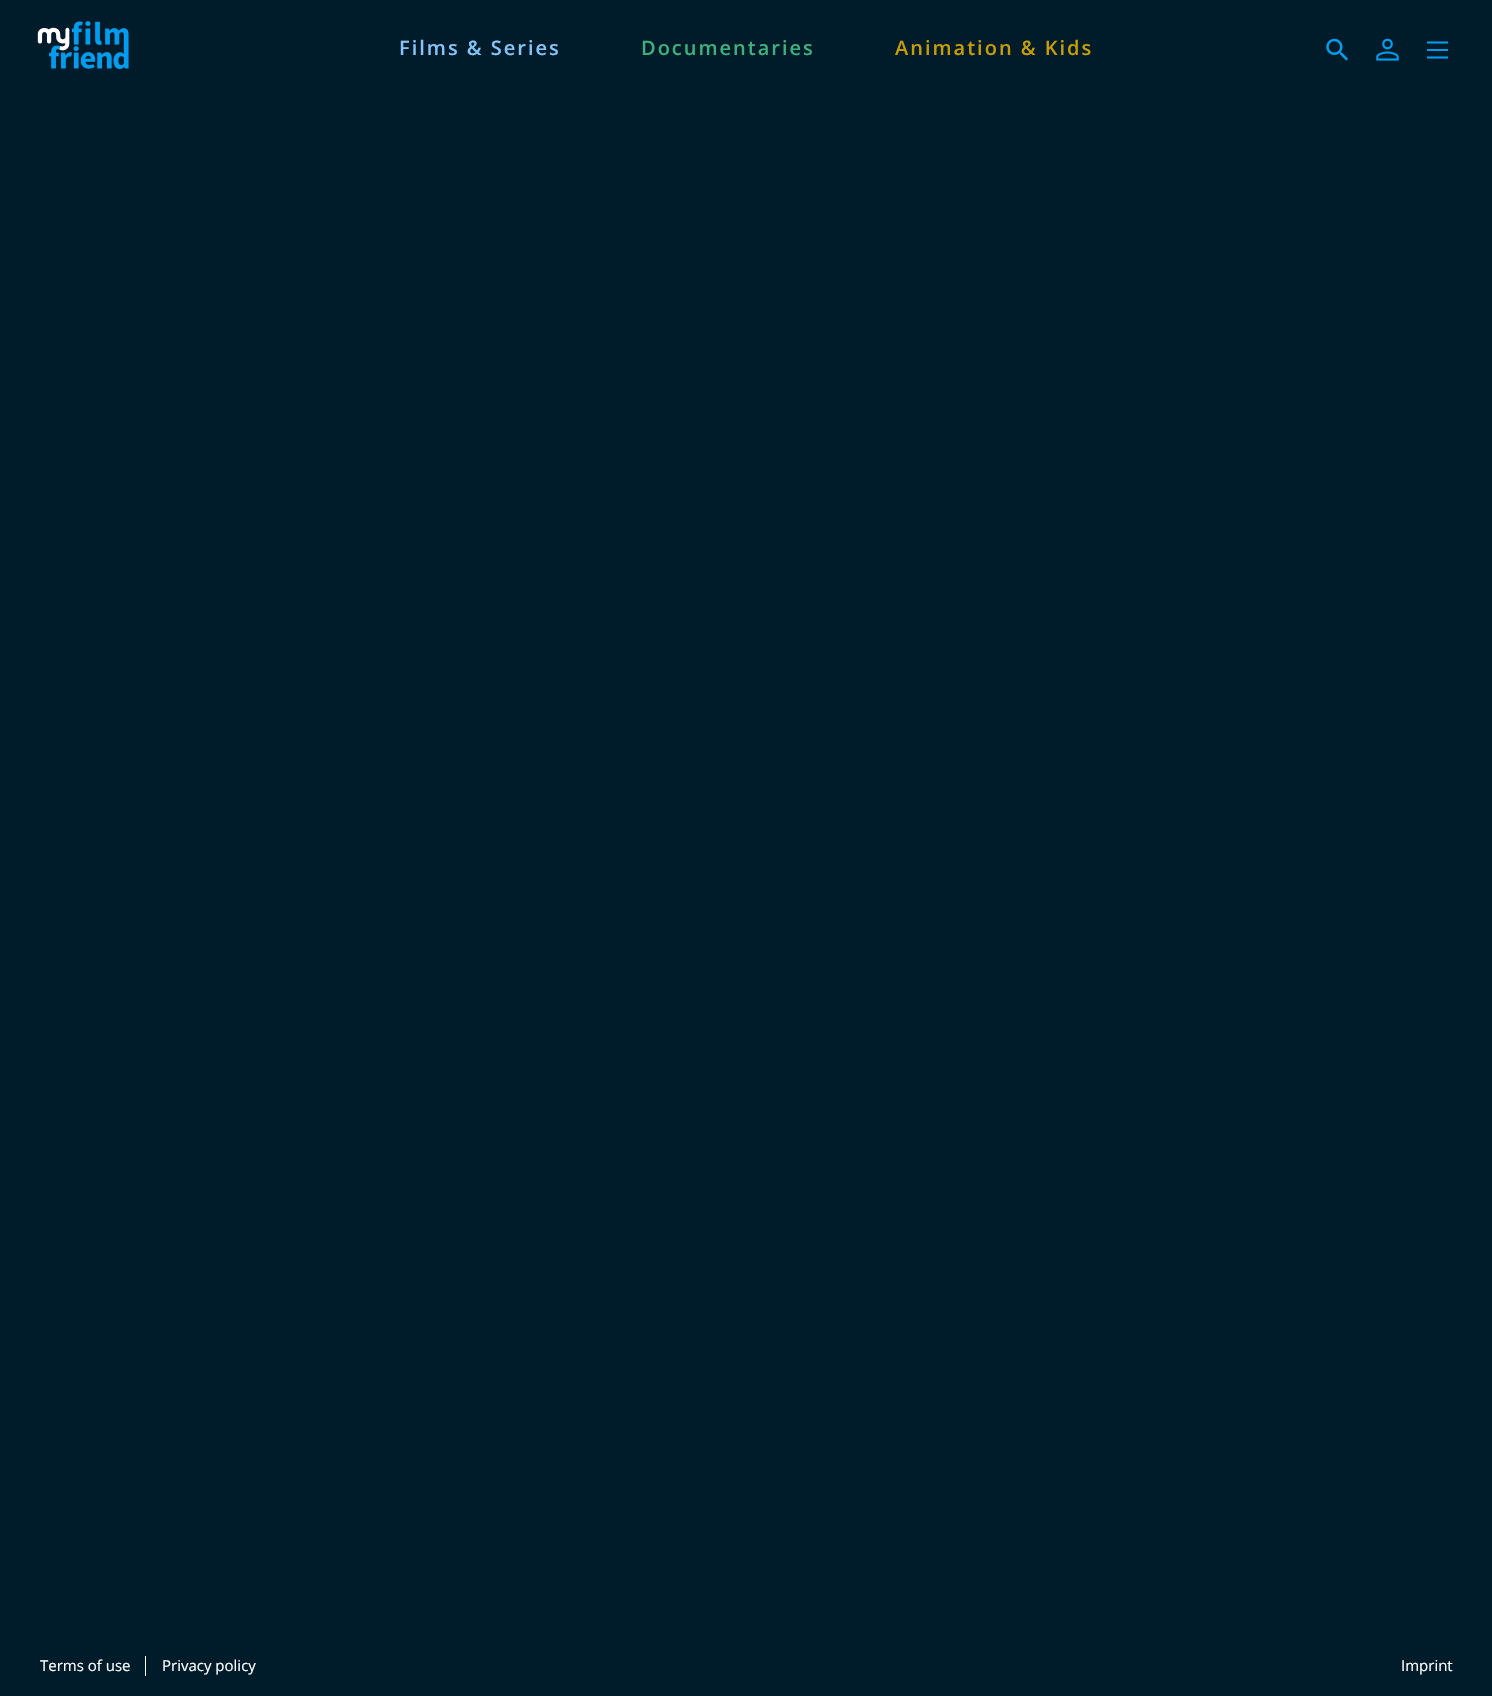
void draw(SkCanvas* canvas) {
    SkPaint paint;
    paint.setAntiAlias(true);
    auto face = [&](const char* family, int weight, float size, bool italic = false) {
        SkFontStyle style(weight, SkFontStyle::kNormal_Width,
            italic ? SkFontStyle::kItalic_Slant : SkFontStyle::kUpright_Slant);
        SkFont result(fontMgr->matchFamilyStyle(family, style), size);
        result.setSubpixel(true);
        return result;
    };
    auto write = [&](const char* s, float x, float y, const SkFont& font, SkColor color) {
        SkPaint ink(SkColor4f::FromColor(color));
        ink.setAntiAlias(true);
        canvas->drawString(s, x, y, font, ink);
    };
    auto writeSpaced = [&](const char* s, float x, float y, const SkFont& font, const SkPaint& ink, float letter, float word) {
        std::vector<SkGlyphID> glyphs(font.countText(s, strlen(s), SkTextEncoding::kUTF8));
        std::vector<float> xs(glyphs.size());
        font.textToGlyphs(s, strlen(s), SkTextEncoding::kUTF8, glyphs);
        font.getXPos(glyphs, xs, x);
        float extra = 0;
        for (size_t i = 0; i < glyphs.size(); i++) {
            xs[i] += extra;
            extra += letter + word * (glyphs[i] == font.unicharToGlyph(' '));
        }
        canvas->drawTextBlob(SkTextBlob::MakeFromPosHGlyphs(glyphs, xs, y, font), 0, 0, ink);
    };
    auto block = [&](float x, float y, float w, float h, SkColor color) {
        SkPaint ink(SkColor4f::FromColor(color));
        ink.setAntiAlias(true);
        canvas->drawRect(SkRect::MakeXYWH(x, y, w, h), ink);
    };
    auto paste = [&](const char* path, float x, float y, float w, float h) {
        auto image = SkImages::DeferredFromEncodedData(SkData::MakeFromFileName(path));
        canvas->drawImageRect(image, SkRect::MakeXYWH(x, y, w, h), SkSamplingOptions());
    };
    canvas->clear(SkColorSetRGB(0, 28, 42));
    paste("pic1.png", 37, 21, 92, 48);
    auto kFont1 = face("Open Sans", 600, 20);
    paint.setColor(SkColorSetRGB(134, 195, 248));
    writeSpaced("Films & Series", 399, 55, kFont1, paint, 2, 0);
    paint.setColor(SkColorSetRGB(62, 176, 124));
    writeSpaced("Documentaries", 641, 55, kFont1, paint, 2, 0);
    paint.setColor(SkColorSetRGB(197, 158, 5));
    writeSpaced("Animation & Kids", 895, 55, kFont1, paint, 2, 0);
    paste("pic2.png", 1326, 38, 22, 23);
    paste("pic3.png", 1376, 38, 23, 23);
    paint.setStyle(SkPaint::kStroke_Style);
    paint.setStrokeWidth(2.1f);
    paint.setColor(SkColorSetRGB(0, 156, 237));
    canvas->drawPath(SkPathBuilder().moveTo(1427, 42.5f).lineTo(1448, 42.5f).detach(), paint);
    block(1427, 49, 21, 2, SkColorSetRGB(0, 156, 237));
    canvas->drawPath(SkPathBuilder().moveTo(1427, 57.5f).lineTo(1448, 57.5f).detach(), paint);
    auto kFont2 = face("Open Sans", 400, 15);
    write("Terms of use", 40, 1671, kFont2, SK_ColorWHITE);
    block(145, 1656, 1, 20, SK_ColorWHITE);
    write("Privacy policy", 162, 1671, kFont2, SK_ColorWHITE);
    write("Imprint", 1401, 1671, kFont2, SK_ColorWHITE);
}
